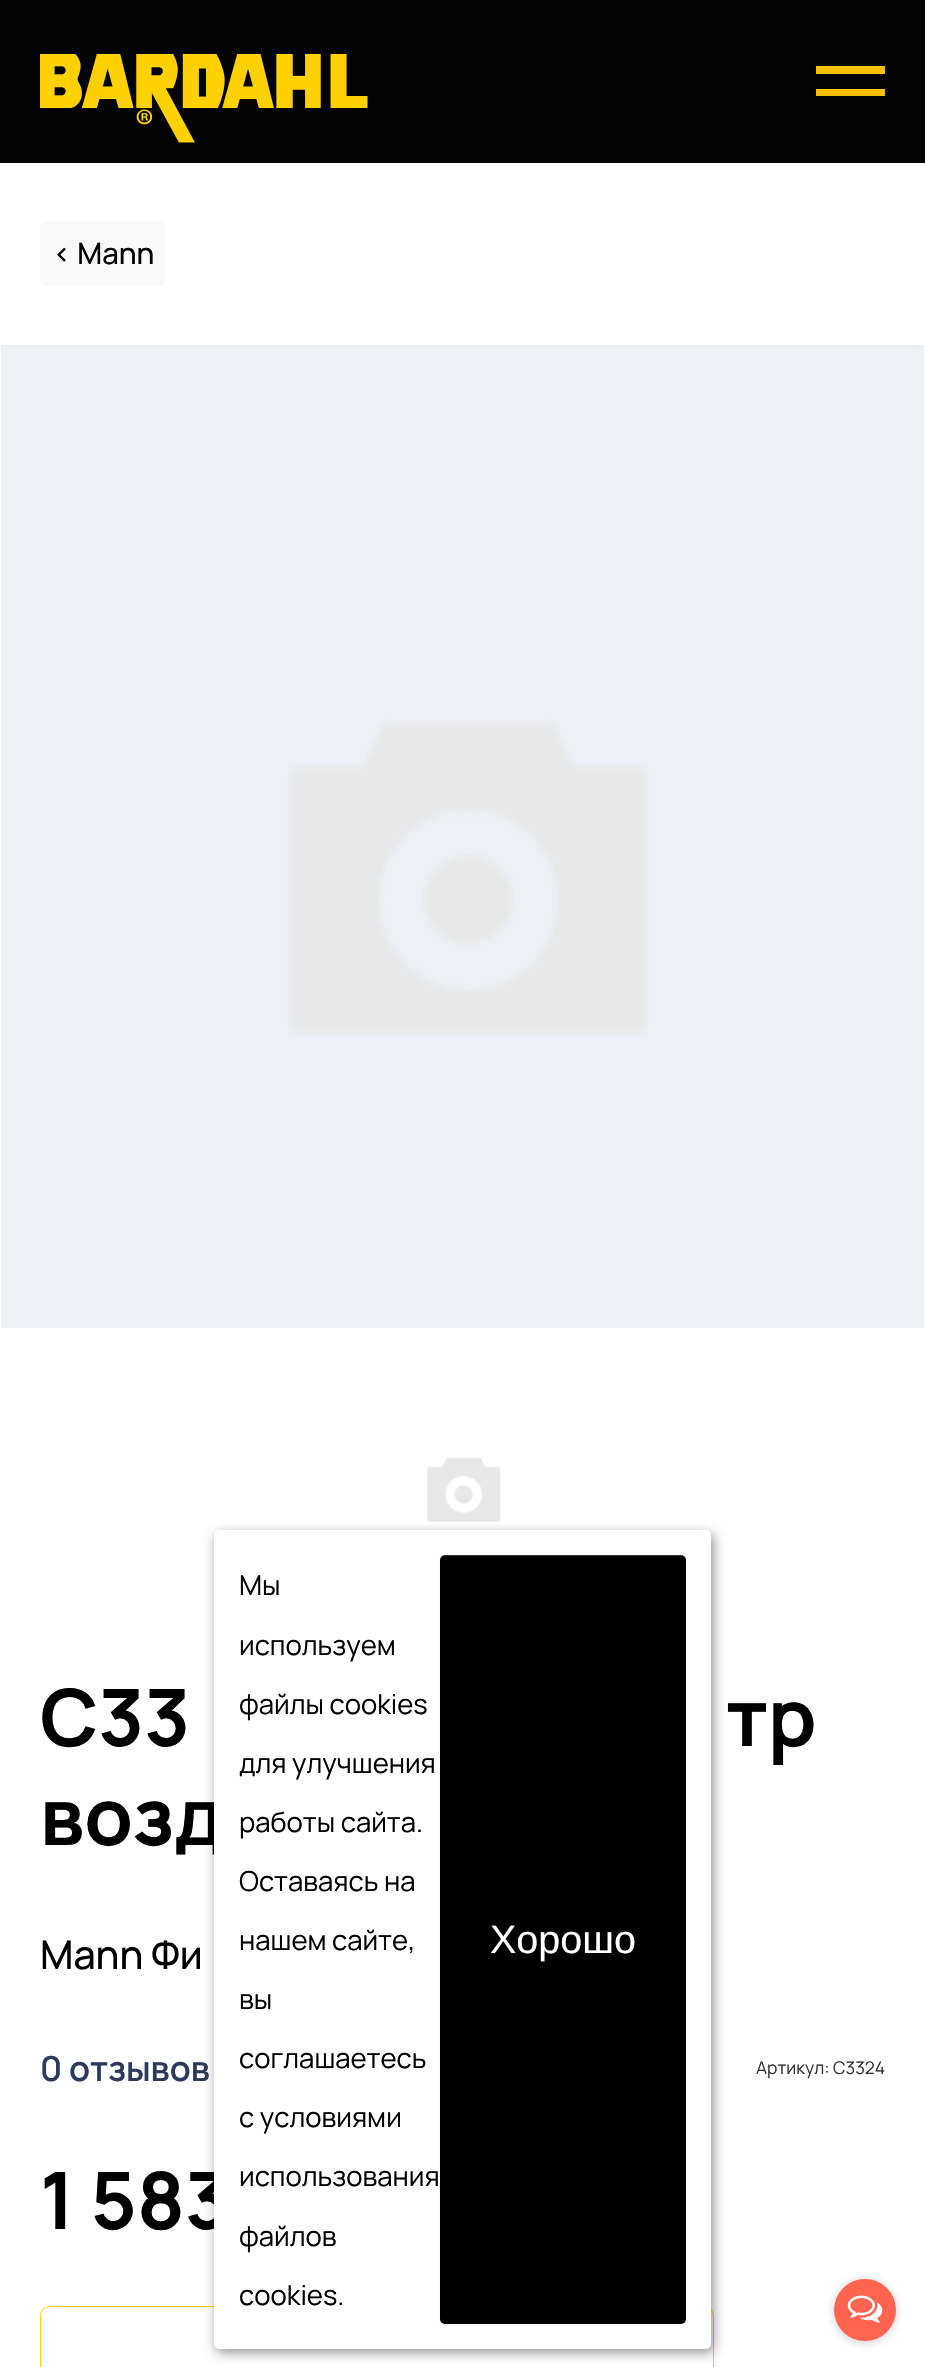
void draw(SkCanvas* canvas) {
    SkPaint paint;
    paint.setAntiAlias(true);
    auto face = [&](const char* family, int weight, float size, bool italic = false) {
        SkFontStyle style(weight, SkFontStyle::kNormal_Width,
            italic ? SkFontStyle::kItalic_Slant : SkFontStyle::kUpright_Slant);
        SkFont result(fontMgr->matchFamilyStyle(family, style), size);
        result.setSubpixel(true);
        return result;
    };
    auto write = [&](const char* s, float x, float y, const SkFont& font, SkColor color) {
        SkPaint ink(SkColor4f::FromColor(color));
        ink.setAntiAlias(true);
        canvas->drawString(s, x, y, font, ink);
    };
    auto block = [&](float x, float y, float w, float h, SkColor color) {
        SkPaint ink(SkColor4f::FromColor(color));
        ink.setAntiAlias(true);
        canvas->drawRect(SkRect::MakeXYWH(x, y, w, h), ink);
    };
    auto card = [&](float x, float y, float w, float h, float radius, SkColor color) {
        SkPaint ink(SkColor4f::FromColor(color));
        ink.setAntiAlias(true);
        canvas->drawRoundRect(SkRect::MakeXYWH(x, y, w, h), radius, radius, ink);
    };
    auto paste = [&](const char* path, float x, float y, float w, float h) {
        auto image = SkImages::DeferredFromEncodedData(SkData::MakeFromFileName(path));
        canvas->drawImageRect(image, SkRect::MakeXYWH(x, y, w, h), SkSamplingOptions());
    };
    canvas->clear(SK_ColorWHITE);
    block(0, 0, 925, 163, SkColorSetRGB(3, 3, 3));
    paste("pic1.png", 40, 54, 328, 89);
    block(816, 66, 69, 8, SkColorSetRGB(246, 193, 4));
    block(816, 89, 69, 7, SkColorSetRGB(246, 193, 4));
    card(40, 221, 126, 65, 6, SkColorSetRGB(249, 249, 249));
    auto kFont1 = face("Manrope", 500, 29.5f);
    write("< Mann", 53, 264, kFont1, SK_ColorBLACK);
    block(1, 345, 923, 983, SkColorSetRGB(237, 241, 247));
    paste("pic2.png", 287, 719, 362, 318);
    paste("pic3.png", 427, 1457, 74, 65);
    auto kFont2 = face("Manrope", 700, 79);
    write("C33", 40, 1746, kFont2, SK_ColorBLACK);
    write("тр", 726, 1746, kFont2, SK_ColorBLACK);
    write("возд", 40, 1845, kFont2, SK_ColorBLACK);
    auto kFont3 = face("Manrope", 500, 39.5f);
    write("Mann Фи", 40, 1969, kFont3, SK_ColorBLACK);
    auto kFont4 = face("Manrope", 600, 34.5f);
    write("0 отзывов", 40, 2081, kFont4, SkColorSetRGB(46, 58, 89));
    auto kFont5 = face("Manrope", 400, 17.5f);
    write("Артикул: C3324", 756, 2074, kFont5, SkColorSetRGB(51, 51, 51));
    write("1 583", 40, 2229, kFont2, SK_ColorBLACK);
    paint.setStyle(SkPaint::kStroke_Style);
    paint.setStrokeWidth(1);
    paint.setColor(SkColorSetRGB(255, 209, 0));
    canvas->drawRoundRect(SkRect::MakeXYWH(40.5f, 2306.5f, 673, 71), 9.5f, 9.5f, paint);
    paint.setStyle(SkPaint::kFill_Style);
    paint.setColor(SkColorSetARGB(102, 0, 0, 0));
    paint.setMaskFilter(SkMaskFilter::MakeBlur(kNormal_SkBlurStyle, 6));
    canvas->drawRoundRect(SkRect::MakeXYWH(216, 1534, 498, 819), 5, 5, paint);
    paint.setMaskFilter(nullptr);
    card(214, 1530, 497, 819, 5, SK_ColorWHITE);
    auto kFont6 = face("Manrope", 400, 27.5f);
    write("Мы", 239, 1595, kFont6, SK_ColorBLACK);
    write("используем", 239, 1655, kFont6, SK_ColorBLACK);
    write("файлы cookies", 239, 1714, kFont6, SK_ColorBLACK);
    write("для улучшения", 239, 1773, kFont6, SK_ColorBLACK);
    write("работы сайта.", 239, 1832, kFont6, SK_ColorBLACK);
    write("Оставаясь на", 239, 1891, kFont6, SK_ColorBLACK);
    write("нашем сайте,", 239, 1950, kFont6, SK_ColorBLACK);
    write("вы", 239, 2009, kFont6, SK_ColorBLACK);
    write("соглашаетесь", 239, 2068, kFont6, SK_ColorBLACK);
    write("с условиями", 239, 2127, kFont6, SK_ColorBLACK);
    write("использования", 239, 2186, kFont6, SK_ColorBLACK);
    write("файлов", 239, 2246, kFont6, SK_ColorBLACK);
    write("cookies.", 239, 2305, kFont6, SK_ColorBLACK);
    paint.setColor(SkColorSetARGB(13, 0, 0, 0));
    paint.setMaskFilter(SkMaskFilter::MakeBlur(kNormal_SkBlurStyle, 1));
    canvas->drawRoundRect(SkRect::MakeXYWH(440, 1556, 246, 769), 5, 5, paint);
    paint.setMaskFilter(nullptr);
    card(440, 1555, 246, 769, 5, SK_ColorBLACK);
    paint.setColor(SkColorSetARGB(51, 255, 255, 255));
    canvas->drawPath(SkPathBuilder().moveTo(445, 1556).lineTo(681, 1556).cubicTo(684, 1556, 686, 1558, 686, 1561).lineTo(686, 1560).cubicTo(686, 1557, 684, 1555, 681, 1555).lineTo(445, 1555).cubicTo(442, 1555, 440, 1557, 440, 1560).lineTo(440, 1561).cubicTo(440, 1558, 442, 1556, 445, 1556).close().detach(), paint);
    auto kFont7 = face("Liberation Sans", 400, 39.5f);
    write("Хорошо", 490, 1953, kFont7, SK_ColorWHITE);
    paint.setColor(SkColorSetARGB(102, 136, 136, 136));
    paint.setMaskFilter(SkMaskFilter::MakeBlur(kNormal_SkBlurStyle, 4.5f));
    canvas->drawRoundRect(SkRect::MakeXYWH(834, 2280, 62, 63), 31, 31, paint);
    paint.setMaskFilter(nullptr);
    paint.setColor(SkColorSetRGB(255, 101, 80));
    canvas->drawCircle(865, 2310, 31, paint);
    paste("pic4.png", 847, 2295, 36, 28);
}
